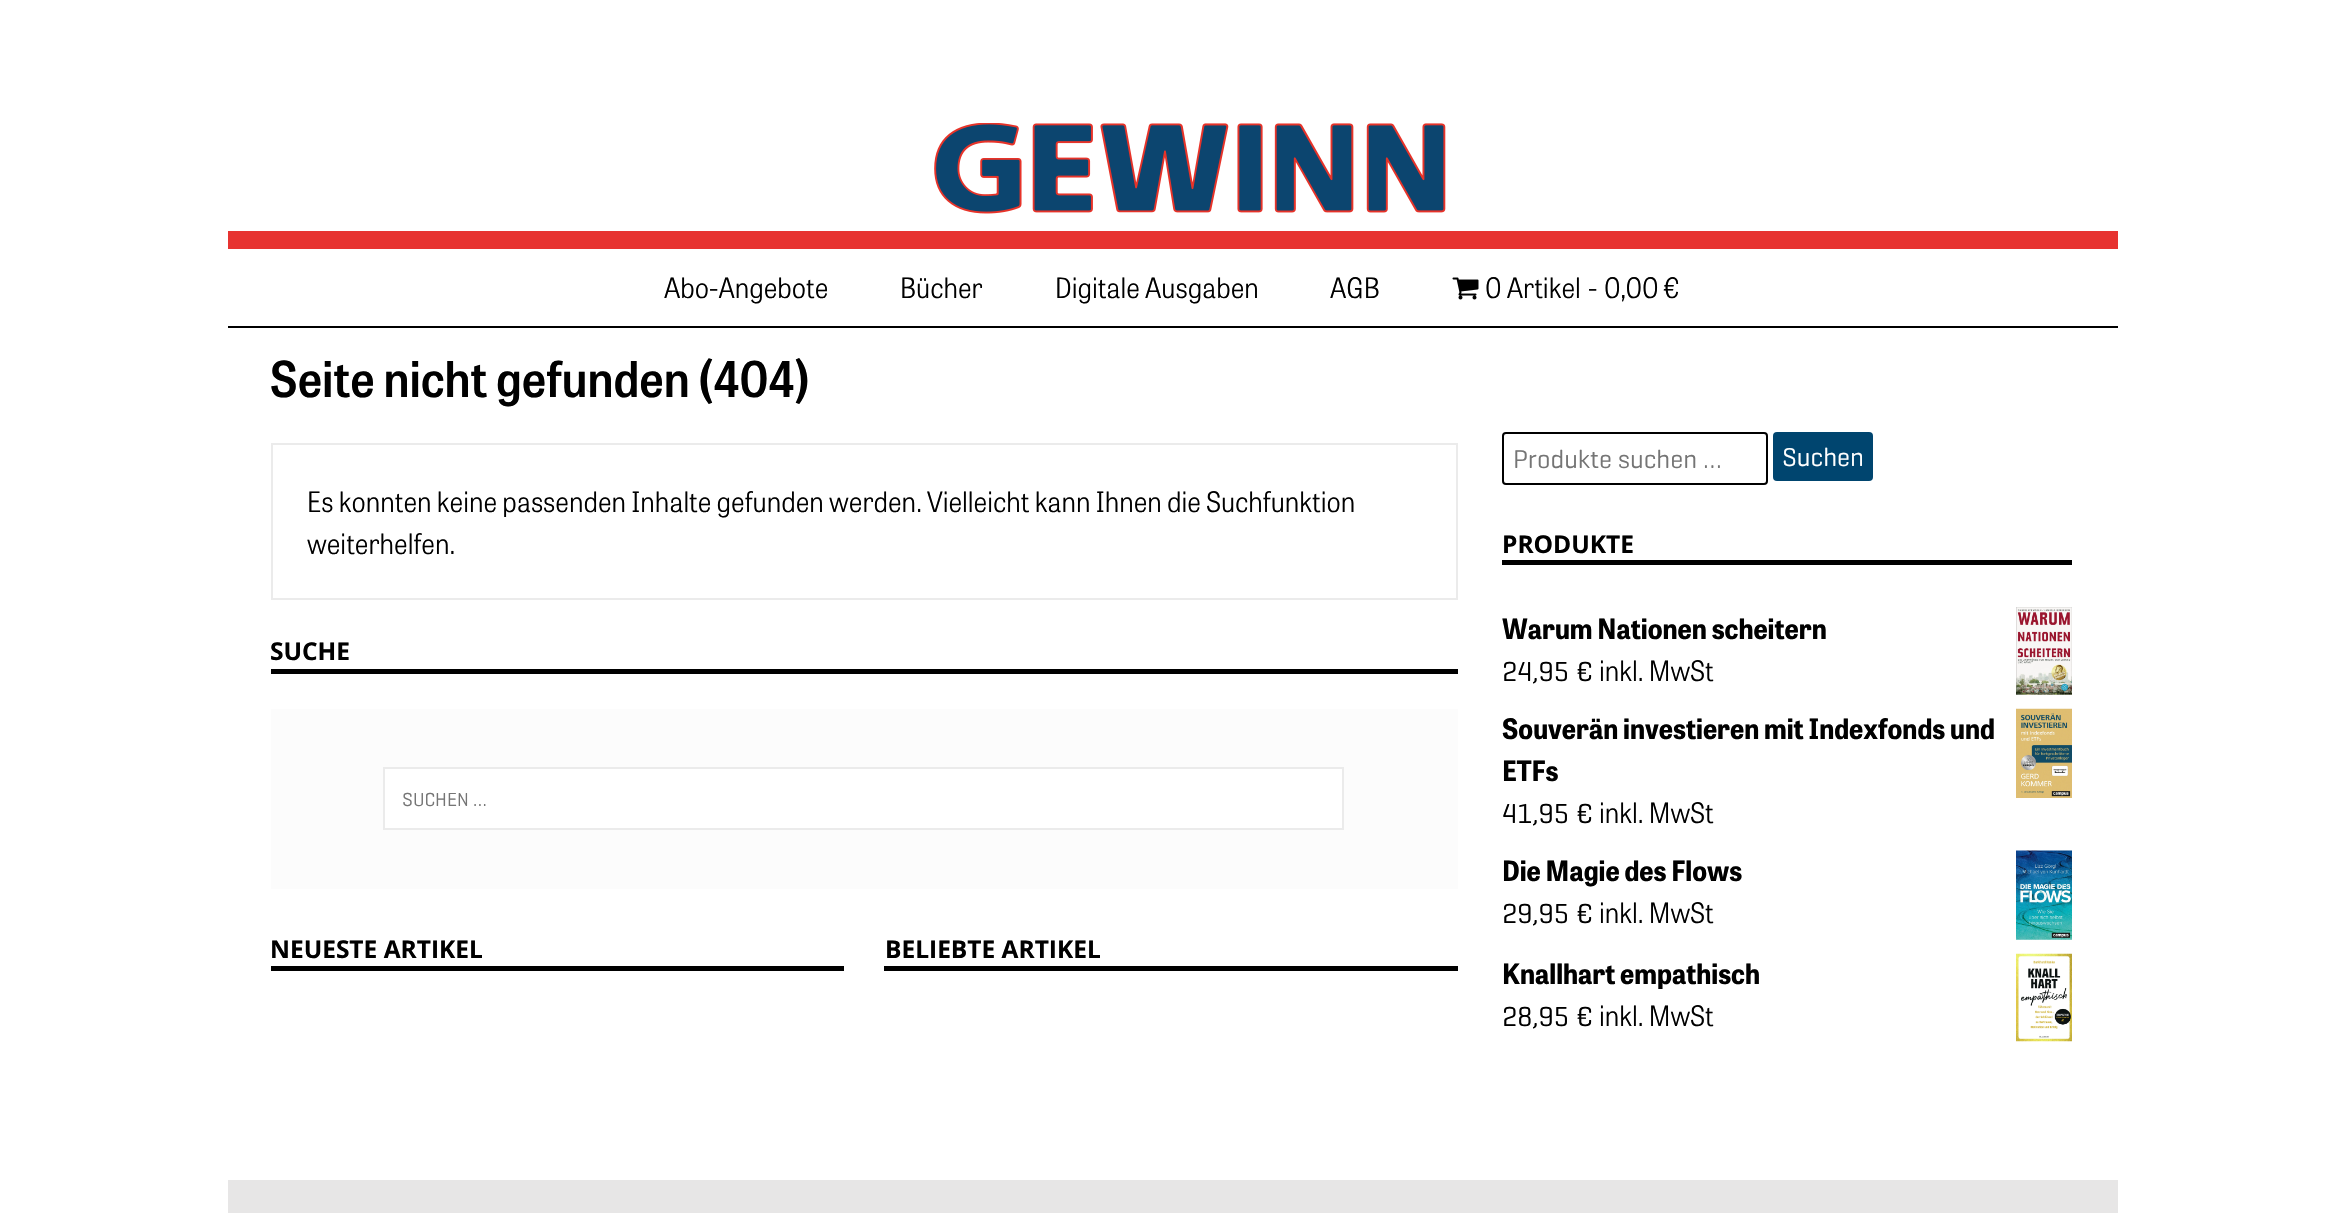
void draw(SkCanvas* canvas) {
    SkPaint paint;
    paint.setAntiAlias(true);
    auto face = [&](const char* family, int weight, float size, bool italic = false) {
        SkFontStyle style(weight, SkFontStyle::kNormal_Width,
            italic ? SkFontStyle::kItalic_Slant : SkFontStyle::kUpright_Slant);
        SkFont result(fontMgr->matchFamilyStyle(family, style), size);
        result.setSubpixel(true);
        return result;
    };
    auto write = [&](const char* s, float x, float y, const SkFont& font, SkColor color) {
        SkPaint ink(SkColor4f::FromColor(color));
        ink.setAntiAlias(true);
        canvas->drawString(s, x, y, font, ink);
    };
    auto block = [&](float x, float y, float w, float h, SkColor color) {
        SkPaint ink(SkColor4f::FromColor(color));
        ink.setAntiAlias(true);
        canvas->drawRect(SkRect::MakeXYWH(x, y, w, h), ink);
    };
    auto card = [&](float x, float y, float w, float h, float radius, SkColor color) {
        SkPaint ink(SkColor4f::FromColor(color));
        ink.setAntiAlias(true);
        canvas->drawRoundRect(SkRect::MakeXYWH(x, y, w, h), radius, radius, ink);
    };
    auto paste = [&](const char* path, float x, float y, float w, float h) {
        auto image = SkImages::DeferredFromEncodedData(SkData::MakeFromFileName(path));
        canvas->drawImageRect(image, SkRect::MakeXYWH(x, y, w, h), SkSamplingOptions());
    };
    canvas->clear(SK_ColorWHITE);
    paste("pic1.png", 934, 123, 512, 91);
    block(228, 231, 1890, 18, SkColorSetRGB(231, 51, 49));
    block(228, 326, 1890, 2, SK_ColorBLACK);
    auto kFont1 = face("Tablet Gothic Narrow", 300, 28);
    write("Abo-Angebote", 664, 298, kFont1, SK_ColorBLACK);
    write("Bücher", 900, 298, kFont1, SK_ColorBLACK);
    write("Digitale Ausgaben", 1055, 298, kFont1, SK_ColorBLACK);
    write("AGB", 1330, 298, kFont1, SK_ColorBLACK);
    paste("pic2.png", 1452, 277, 27, 23);
    write("0 Artikel", 1485, 298, kFont1, SK_ColorBLACK);
    write("-", 1588, 298, kFont1, SK_ColorBLACK);
    write("0,00 €", 1604, 298, kFont1, SK_ColorBLACK);
    auto kFont2 = face("Tablet Gothic Narrow", 600, 49);
    write("Seite nicht gefunden (404)", 270, 397, kFont2, SK_ColorBLACK);
    paint.setStyle(SkPaint::kStroke_Style);
    paint.setStrokeWidth(2);
    paint.setColor(SkColorSetRGB(235, 235, 235));
    canvas->drawRect(SkRect::MakeXYWH(272, 444, 1185, 155), paint);
    write("Es konnten keine passenden Inhalte gefunden werden. Vielleicht kann Ihnen die Suchfunktion", 307, 512, kFont1, SK_ColorBLACK);
    write("weiterhelfen.", 307, 554, kFont1, SK_ColorBLACK);
    block(271, 669, 1187, 5, SK_ColorBLACK);
    auto kFont3 = face("Open Sans", 700, 24.5f);
    write("SUCHE", 270, 660, kFont3, SK_ColorBLACK);
    block(271, 709, 1187, 180, SkColorSetRGB(252, 252, 252));
    paint.setStyle(SkPaint::kFill_Style);
    paint.setColor(SK_ColorWHITE);
    canvas->drawRect(SkRect::MakeXYWH(384, 768, 959, 61), paint);
    paint.setStyle(SkPaint::kStroke_Style);
    paint.setColor(SkColorSetRGB(235, 235, 235));
    canvas->drawRect(SkRect::MakeXYWH(384, 768, 959, 61), paint);
    auto kFont4 = face("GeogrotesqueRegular", 400, 19.25f);
    write("SUCHEN …", 402, 806, kFont4, SkColorSetRGB(117, 117, 117));
    block(271, 966, 573, 5, SK_ColorBLACK);
    write("NEUESTE ARTIKEL", 270, 958, kFont3, SK_ColorBLACK);
    block(884, 966, 574, 5, SK_ColorBLACK);
    write("BELIEBTE ARTIKEL", 885, 958, kFont3, SK_ColorBLACK);
    paint.setColor(SK_ColorBLACK);
    canvas->drawRoundRect(SkRect::MakeXYWH(1503, 433, 264, 51), 3, 3, paint);
    auto kFont5 = face("GeogrotesqueRegular", 400, 26.25f);
    write("Produkte suchen …", 1513, 468, kFont5, SkColorSetRGB(117, 117, 117));
    card(1773, 432, 100, 49, 4, SkColorSetRGB(0, 69, 111));
    write("Suchen", 1782, 466, kFont5, SK_ColorWHITE);
    block(1502, 560, 570, 5, SK_ColorBLACK);
    write("PRODUKTE", 1502, 553, kFont3, SK_ColorBLACK);
    auto kFont6 = face("Tablet Gothic Narrow", 700, 28);
    write("Warum Nationen scheitern", 1502, 639, kFont6, SK_ColorBLACK);
    paste("pic3.png", 2016, 607, 56, 88);
    auto kFont7 = face("GeogrotesqueRegular", 400, 28);
    write("24,95 €", 1502, 681, kFont7, SK_ColorBLACK);
    write("inkl. MwSt", 1599, 681, kFont1, SK_ColorBLACK);
    write("Souverän investieren mit Indexfonds und", 1502, 739, kFont6, SK_ColorBLACK);
    paste("pic4.png", 2016, 708, 56, 90);
    write("ETFs", 1502, 781, kFont6, SK_ColorBLACK);
    write("41,95 €", 1502, 823, kFont7, SK_ColorBLACK);
    write("inkl. MwSt", 1599, 823, kFont1, SK_ColorBLACK);
    write("Die Magie des Flows", 1502, 881, kFont6, SK_ColorBLACK);
    paste("pic5.png", 2016, 850, 56, 90);
    write("29,95 €", 1502, 923, kFont7, SK_ColorBLACK);
    write("inkl. MwSt", 1599, 923, kFont1, SK_ColorBLACK);
    write("Knallhart empathisch", 1502, 984, kFont6, SK_ColorBLACK);
    paste("pic6.png", 2016, 953, 56, 89);
    write("28,95 €", 1502, 1026, kFont7, SK_ColorBLACK);
    write("inkl. MwSt", 1599, 1026, kFont1, SK_ColorBLACK);
    block(228, 1180, 1890, 33, SkColorSetRGB(231, 230, 230));
}
